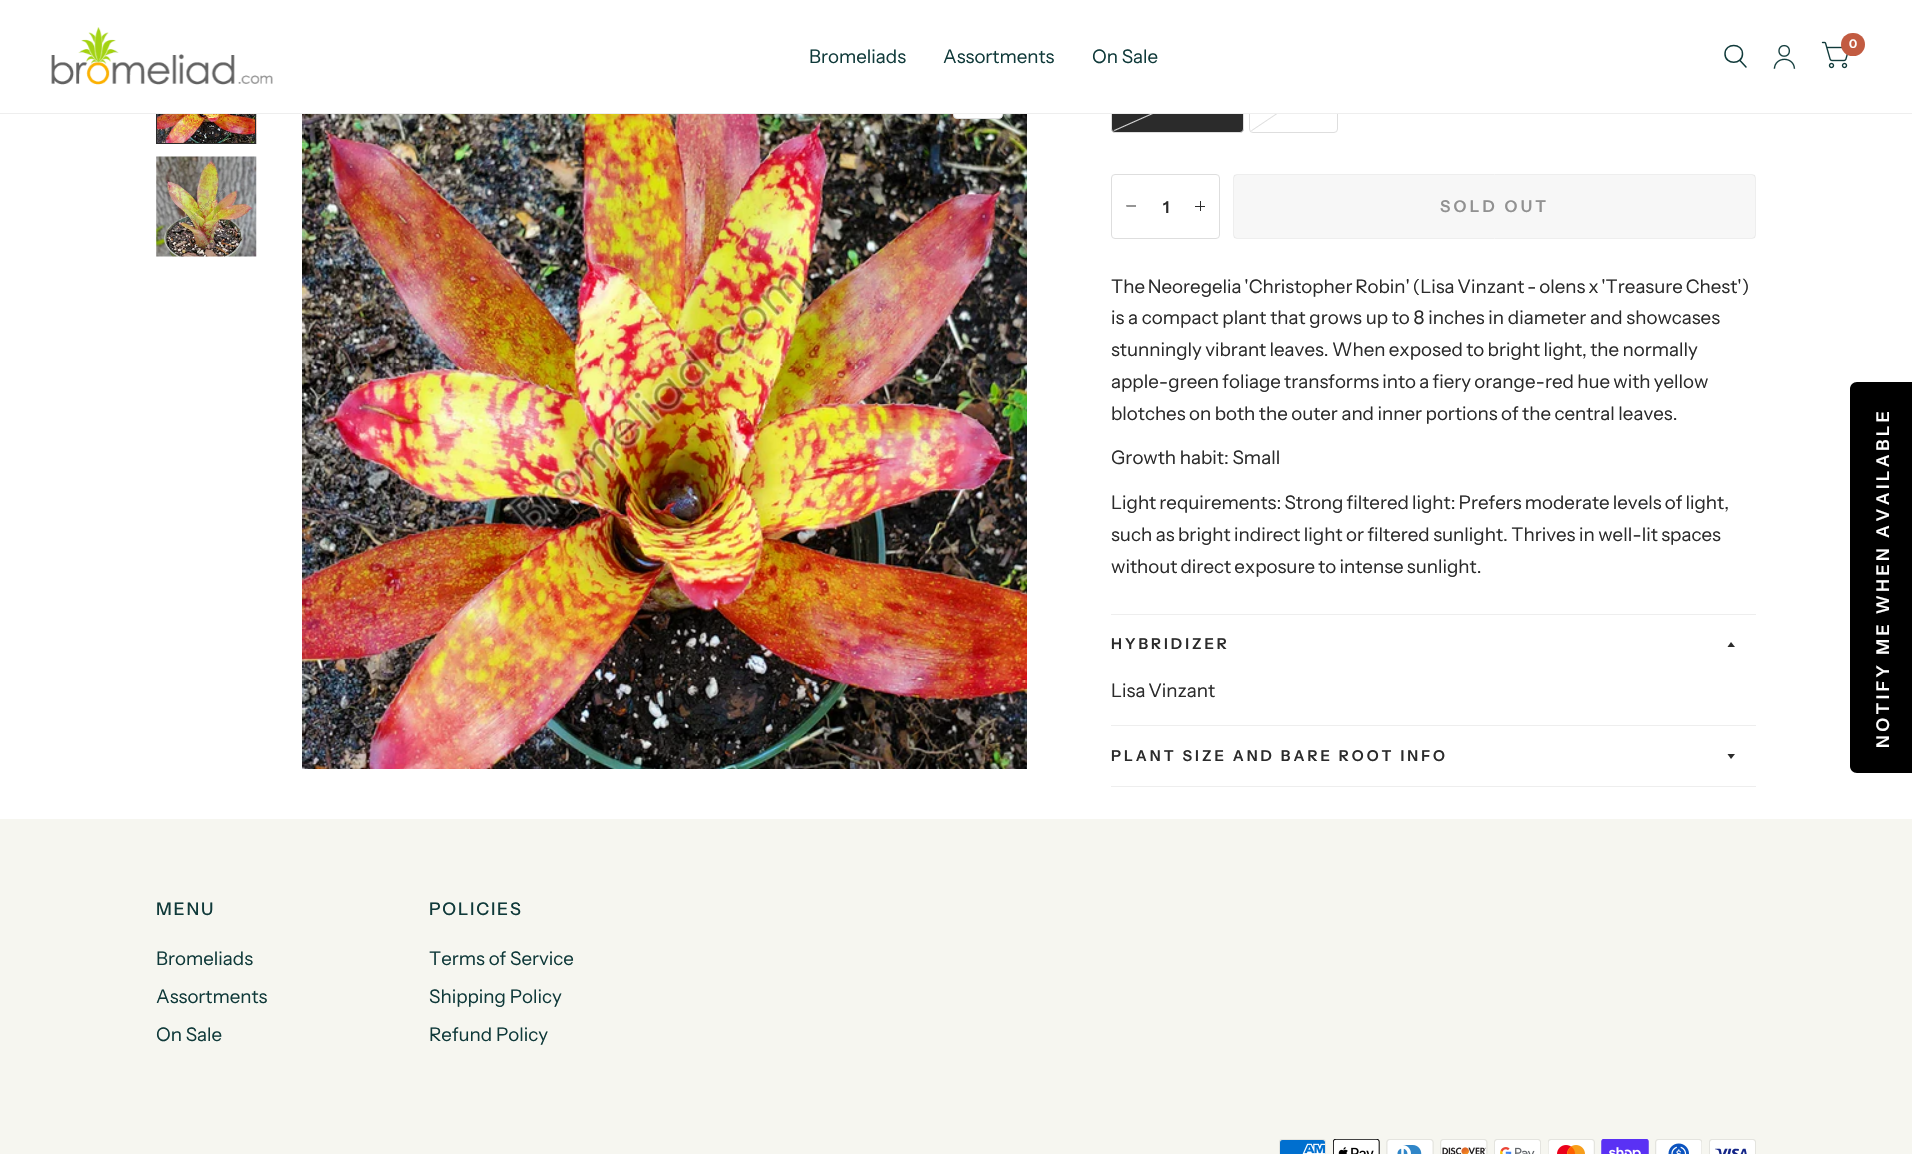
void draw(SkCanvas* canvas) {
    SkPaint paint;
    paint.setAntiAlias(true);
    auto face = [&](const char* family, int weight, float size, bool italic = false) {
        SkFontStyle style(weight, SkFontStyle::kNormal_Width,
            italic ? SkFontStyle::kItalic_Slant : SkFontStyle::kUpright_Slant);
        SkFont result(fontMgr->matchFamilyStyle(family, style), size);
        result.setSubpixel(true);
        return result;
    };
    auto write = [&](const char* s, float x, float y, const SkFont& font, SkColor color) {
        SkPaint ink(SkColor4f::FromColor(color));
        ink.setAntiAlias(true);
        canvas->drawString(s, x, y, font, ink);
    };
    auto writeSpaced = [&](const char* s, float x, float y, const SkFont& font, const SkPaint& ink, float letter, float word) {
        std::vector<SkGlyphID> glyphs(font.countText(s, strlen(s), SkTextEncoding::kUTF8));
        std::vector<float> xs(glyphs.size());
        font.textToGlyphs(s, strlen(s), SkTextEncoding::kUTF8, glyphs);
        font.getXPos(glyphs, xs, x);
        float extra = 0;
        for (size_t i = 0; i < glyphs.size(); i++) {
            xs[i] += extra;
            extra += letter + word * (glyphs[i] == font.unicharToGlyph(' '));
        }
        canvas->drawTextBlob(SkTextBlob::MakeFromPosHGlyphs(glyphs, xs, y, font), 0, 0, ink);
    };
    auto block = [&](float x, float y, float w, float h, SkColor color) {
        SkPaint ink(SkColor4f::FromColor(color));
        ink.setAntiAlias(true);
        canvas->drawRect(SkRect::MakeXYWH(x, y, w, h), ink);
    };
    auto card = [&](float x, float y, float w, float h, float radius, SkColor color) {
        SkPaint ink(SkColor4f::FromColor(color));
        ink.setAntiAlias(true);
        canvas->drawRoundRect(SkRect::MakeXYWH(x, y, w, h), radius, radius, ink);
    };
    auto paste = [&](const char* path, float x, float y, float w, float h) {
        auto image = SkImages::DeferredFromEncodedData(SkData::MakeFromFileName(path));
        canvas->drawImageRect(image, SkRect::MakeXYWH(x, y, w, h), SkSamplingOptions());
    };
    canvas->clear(SK_ColorWHITE);
    paste("pic4.png", 157, 114, 100, 30);
    paint.setStyle(SkPaint::kStroke_Style);
    paint.setStrokeWidth(1);
    paint.setColor(SkColorSetRGB(43, 43, 43));
    canvas->drawRect(SkRect::MakeXYWH(156.5f, 44.5f, 99, 99), paint);
    paste("pic6.png", 302, 114, 725, 655);
    paint.setStyle(SkPaint::kFill_Style);
    paint.setColor(SK_ColorWHITE);
    canvas->drawRoundRect(SkRect::MakeXYWH(953.5f, 69.5f, 49, 49), 3.5f, 3.5f, paint);
    paint.setStyle(SkPaint::kStroke_Style);
    paint.setColor(SkColorSetRGB(222, 222, 222));
    canvas->drawRoundRect(SkRect::MakeXYWH(953.5f, 69.5f, 49, 49), 3.5f, 3.5f, paint);
    paint.setStyle(SkPaint::kFill_Style);
    paint.setColor(SkColorSetRGB(43, 43, 43));
    canvas->drawRoundRect(SkRect::MakeXYWH(1111.5f, 73.5f, 132, 59), 3.5f, 3.5f, paint);
    paint.setStyle(SkPaint::kStroke_Style);
    paint.setColor(SkColorSetRGB(222, 222, 222));
    canvas->drawRoundRect(SkRect::MakeXYWH(1111.5f, 73.5f, 132, 59), 3.5f, 3.5f, paint);
    paint.setStyle(SkPaint::kFill_Style);
    {
        const SkColor colors[] = {SkColorSetARGB(0, 222, 222, 222), SkColorSetRGB(222, 222, 222), SkColorSetARGB(0, 222, 222, 222)};
        const float stops[] = {0.49f, 0.5f, 0.51f};
        const SkPoint ends[] = {{1156, 54}, {1199, 151}};
        paint.setShader(SkGradientShader::MakeLinear(ends, colors, stops, 3, SkTileMode::kClamp));
        paint.setAlpha(255);
    }
    canvas->drawRoundRect(SkRect::MakeXYWH(1113, 74, 130, 57), 2.5f, 2.5f, paint);
    paint.setStyle(SkPaint::kStroke_Style);
    paint.setShader(nullptr);
    paint.setColor(SkColorSetRGB(222, 222, 222));
    canvas->drawRoundRect(SkRect::MakeXYWH(1249.5f, 73.5f, 88, 59), 3.5f, 3.5f, paint);
    paint.setStyle(SkPaint::kFill_Style);
    {
        const SkColor colors[] = {SkColorSetARGB(0, 222, 222, 222), SkColorSetRGB(222, 222, 222), SkColorSetARGB(0, 222, 222, 222)};
        const float stops[] = {0.49f, 0.5f, 0.51f};
        const SkPoint ends[] = {{1267, 63}, {1320, 142}};
        paint.setShader(SkGradientShader::MakeLinear(ends, colors, stops, 3, SkTileMode::kClamp));
        paint.setAlpha(255);
    }
    canvas->drawRoundRect(SkRect::MakeXYWH(1250, 74, 86, 57), 2.5f, 2.5f, paint);
    block(156, 44, 1182, 69, SK_ColorWHITE);
    block(0, 113, 1912, 1, SkColorSetRGB(238, 238, 238));
    paste("pic1.png", 51, 27, 222, 58);
    paint.setStyle(SkPaint::kStroke_Style);
    paint.setStrokeWidth(1.5f);
    paint.setStrokeCap(SkPaint::kRound_Cap);
    paint.setStrokeJoin(SkPaint::kRound_Join);
    paint.setShader(nullptr);
    paint.setColor(SkColorSetRGB(16, 58, 58));
    canvas->drawPath(SkPathBuilder().moveTo(1740, 60.5f).lineTo(1746, 67).moveTo(1742.5f, 54).cubicTo(1742.5f, 65, 1725, 65, 1725, 54).cubicTo(1725, 42.5f, 1742.5f, 42.5f, 1742.5f, 54).close().detach(), paint);
    paste("pic2.png", 1773, 44, 23, 25);
    paste("pic3.png", 1821, 41, 27, 28);
    card(1841, 33, 24, 23, 11.5f, SkColorSetRGB(194, 91, 65));
    auto kFont1 = face("Instrument Sans", 600, 12);
    write("0", 1849, 48, kFont1, SK_ColorWHITE);
    auto kFont2 = face("Instrument Sans", 400, 18.75f);
    write("Bromeliads", 809, 63, kFont2, SkColorSetRGB(16, 58, 58));
    write("Assortments", 943, 63, kFont2, SkColorSetRGB(16, 58, 58));
    write("On Sale", 1092, 63, kFont2, SkColorSetRGB(16, 58, 58));
    paste("pic5.png", 156, 156, 101, 101);
    paint.setStrokeWidth(1);
    paint.setStrokeCap(SkPaint::kButt_Cap);
    paint.setStrokeJoin(SkPaint::kMiter_Join);
    paint.setColor(SkColorSetRGB(222, 222, 222));
    canvas->drawRoundRect(SkRect::MakeXYWH(1111.5f, 174.5f, 108, 64), 3.5f, 3.5f, paint);
    paint.setStyle(SkPaint::kFill_Style);
    paint.setColor(SkColorSetRGB(43, 43, 43));
    canvas->drawPath(SkPathBuilder().moveTo(1126.5f, 206.5f).lineTo(1126, 205.5f).lineTo(1136, 205.5f).lineTo(1136, 206.5f).close().detach(), paint);
    auto kFont3 = face("Instrument Sans", 600, 16.25f);
    write("1", 1163, 213, kFont3, SkColorSetRGB(43, 43, 43));
    block(1200, 201, 1, 10, SkColorSetRGB(43, 43, 43));
    block(1195, 206, 10, 1, SkColorSetRGB(43, 43, 43));
    paint.setStyle(SkPaint::kStroke_Style);
    paint.setColor(SkColorSetRGB(238, 238, 238));
    canvas->drawRoundRect(SkRect::MakeXYWH(1233.5f, 174.5f, 522, 64), 3.5f, 3.5f, paint);
    block(1234, 175, 521, 63, SkColorSetARGB(8, 0, 0, 0));
    paint.setStyle(SkPaint::kFill_Style);
    paint.setColor(SkColorSetRGB(145, 145, 145));
    writeSpaced("SOLD OUT", 1440, 212, kFont3, paint, 3.25f, 0);
    paint.setColor(SkColorSetRGB(43, 43, 43));
    writeSpaced("The Neoregelia 'Christopher Robin' (Lisa Vinzant - olens x 'Treasure Chest')", 1111, 293, kFont2, paint, 0, -1);
    write("is a compact plant that grows up to 8 inches in diameter and showcases", 1111, 324, kFont2, SkColorSetRGB(43, 43, 43));
    writeSpaced("stunningly vibrant leaves. When exposed to bright light, the normally", 1111, 356, kFont2, paint, 0, -0.4f);
    writeSpaced("apple-green foliage transforms into a fiery orange-red hue with yellow", 1111, 388, kFont2, paint, 0, -0.5f);
    writeSpaced("blotches on both the outer and inner portions of the central leaves.", 1111, 420, kFont2, paint, 0, -0.25f);
    write("Growth habit: Small", 1111, 464, kFont2, SkColorSetRGB(43, 43, 43));
    writeSpaced("Light requirements: Strong filtered light: Prefers moderate levels of light,", 1111, 509, kFont2, paint, 0, -0.6f);
    writeSpaced("such as bright indirect light or filtered sunlight. Thrives in well-lit spaces", 1111, 541, kFont2, paint, 0, -0.25f);
    writeSpaced("without direct exposure to intense sunlight.", 1111, 573, kFont2, paint, 0, -0.5f);
    block(1111, 614, 645, 1, SkColorSetRGB(238, 238, 238));
    block(1111, 725, 645, 1, SkColorSetRGB(238, 238, 238));
    auto kFont4 = face("Instrument Sans", 600, 15);
    writeSpaced("HYBRIDIZER", 1111, 649, kFont4, paint, 3, 0);
    canvas->drawPath(SkPathBuilder().moveTo(1727.5f, 647).lineTo(1735, 647).lineTo(1731, 642).close().detach(), paint);
    writeSpaced("Lisa Vinzant", 1111, 697, kFont2, paint, 0, -1);
    block(1111, 786, 645, 1, SkColorSetRGB(238, 238, 238));
    writeSpaced("PLANT SIZE AND BARE ROOT INFO", 1111, 761, kFont4, paint, 3, 0);
    canvas->drawPath(SkPathBuilder().moveTo(1727.5f, 754).lineTo(1735, 754).lineTo(1731, 759).close().detach(), paint);
    block(0, 819, 1912, 335, SkColorSetRGB(246, 246, 240));
    auto kFont5 = face("Instrument Sans", 500, 17.5f);
    paint.setColor(SkColorSetRGB(16, 58, 58));
    writeSpaced("MENU", 156, 915, kFont5, paint, 1.75f, 0);
    write("Bromeliads", 156, 965, kFont2, SkColorSetRGB(16, 58, 58));
    write("Assortments", 156, 1003, kFont2, SkColorSetRGB(16, 58, 58));
    write("On Sale", 156, 1041, kFont2, SkColorSetRGB(16, 58, 58));
    writeSpaced("POLICIES", 429, 915, kFont5, paint, 1.75f, 0);
    write("Terms of Service", 429, 965, kFont2, SkColorSetRGB(16, 58, 58));
    write("Shipping Policy", 429, 1003, kFont2, SkColorSetRGB(16, 58, 58));
    write("Refund Policy", 429, 1041, kFont2, SkColorSetRGB(16, 58, 58));
    paste("pic7.png", 1279, 1139, 47, 15);
    paste("pic8.png", 1333, 1139, 47, 15);
    paste("pic9.png", 1386, 1139, 48, 15);
    paste("pic10.png", 1440, 1139, 48, 15);
    paste("pic11.png", 1494, 1139, 47, 15);
    paste("pic12.png", 1548, 1139, 47, 15);
    paste("pic13.png", 1601, 1139, 48, 15);
    paste("pic14.png", 1655, 1139, 47, 15);
    paste("pic15.png", 1709, 1139, 47, 15);
    paint.setColor(SK_ColorBLACK);
    canvas->drawPath(SkPathBuilder().moveTo(1850, 766).lineTo(1850, 389).cubicTo(1850, 385, 1853, 382, 1857, 382).lineTo(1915, 382).lineTo(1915, 773).lineTo(1857, 773).cubicTo(1853, 773, 1850, 770, 1850, 766).close().detach(), paint);
    auto kFont6 = face("Instrument Sans", 600, 17.5f);
    paint.setColor(SK_ColorWHITE);
    canvas->save();
    canvas->rotate(-90, 1889, 748);
    writeSpaced("NOTIFY ME WHEN AVAILABLE", 1889, 748, kFont6, paint, 3.5f, 0);
    canvas->restore();
}
